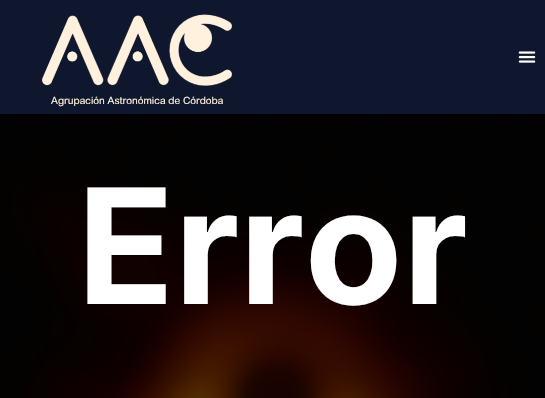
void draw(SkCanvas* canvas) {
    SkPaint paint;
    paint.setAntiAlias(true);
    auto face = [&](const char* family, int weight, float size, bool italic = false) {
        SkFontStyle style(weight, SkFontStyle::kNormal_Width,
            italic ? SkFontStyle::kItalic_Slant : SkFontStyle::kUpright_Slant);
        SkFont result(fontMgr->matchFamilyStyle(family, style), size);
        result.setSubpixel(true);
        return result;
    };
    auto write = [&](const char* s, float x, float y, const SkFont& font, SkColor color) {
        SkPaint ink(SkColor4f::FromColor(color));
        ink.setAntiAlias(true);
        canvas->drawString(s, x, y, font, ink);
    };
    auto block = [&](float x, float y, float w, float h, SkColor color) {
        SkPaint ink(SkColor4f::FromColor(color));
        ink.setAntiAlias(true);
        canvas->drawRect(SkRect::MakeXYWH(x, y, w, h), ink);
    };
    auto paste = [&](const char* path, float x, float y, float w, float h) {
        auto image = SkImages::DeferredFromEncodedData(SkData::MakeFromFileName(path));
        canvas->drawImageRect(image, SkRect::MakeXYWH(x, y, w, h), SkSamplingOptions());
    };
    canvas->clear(SK_ColorWHITE);
    block(0, 0, 545, 114, SkColorSetRGB(14, 23, 45));
    paste("pic1.png", 518, 51, 18, 12);
    paste("pic2.png", 41, 14, 191, 72);
    auto kFont1 = face("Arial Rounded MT", 400, 10);
    write("Agrupación Astronómica de Córdoba", 51, 104, kFont1, SkColorSetRGB(255, 242, 222));
    paste("pic3.png", 0, 114, 545, 284);
    auto kFont2 = face("Inter", 700, 160);
    write("Error", 77, 304, kFont2, SK_ColorWHITE);
}
